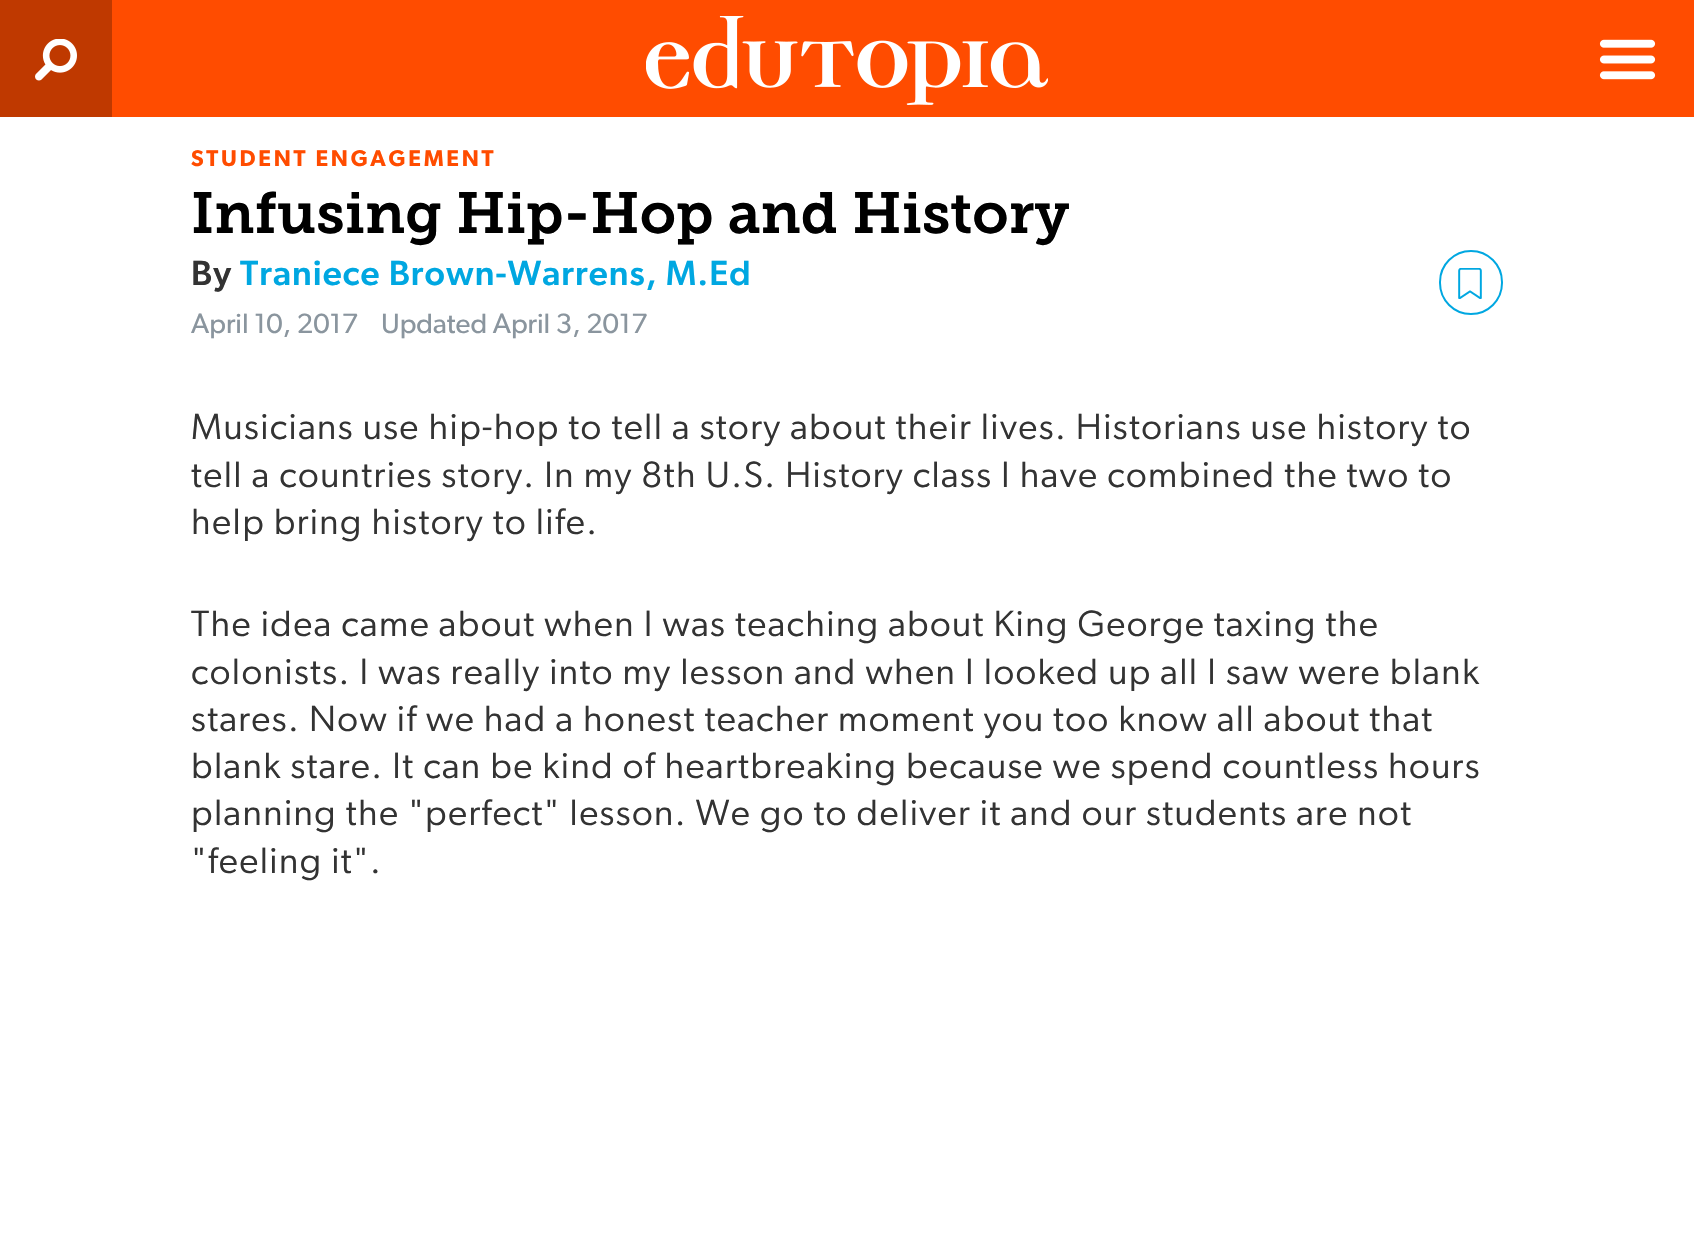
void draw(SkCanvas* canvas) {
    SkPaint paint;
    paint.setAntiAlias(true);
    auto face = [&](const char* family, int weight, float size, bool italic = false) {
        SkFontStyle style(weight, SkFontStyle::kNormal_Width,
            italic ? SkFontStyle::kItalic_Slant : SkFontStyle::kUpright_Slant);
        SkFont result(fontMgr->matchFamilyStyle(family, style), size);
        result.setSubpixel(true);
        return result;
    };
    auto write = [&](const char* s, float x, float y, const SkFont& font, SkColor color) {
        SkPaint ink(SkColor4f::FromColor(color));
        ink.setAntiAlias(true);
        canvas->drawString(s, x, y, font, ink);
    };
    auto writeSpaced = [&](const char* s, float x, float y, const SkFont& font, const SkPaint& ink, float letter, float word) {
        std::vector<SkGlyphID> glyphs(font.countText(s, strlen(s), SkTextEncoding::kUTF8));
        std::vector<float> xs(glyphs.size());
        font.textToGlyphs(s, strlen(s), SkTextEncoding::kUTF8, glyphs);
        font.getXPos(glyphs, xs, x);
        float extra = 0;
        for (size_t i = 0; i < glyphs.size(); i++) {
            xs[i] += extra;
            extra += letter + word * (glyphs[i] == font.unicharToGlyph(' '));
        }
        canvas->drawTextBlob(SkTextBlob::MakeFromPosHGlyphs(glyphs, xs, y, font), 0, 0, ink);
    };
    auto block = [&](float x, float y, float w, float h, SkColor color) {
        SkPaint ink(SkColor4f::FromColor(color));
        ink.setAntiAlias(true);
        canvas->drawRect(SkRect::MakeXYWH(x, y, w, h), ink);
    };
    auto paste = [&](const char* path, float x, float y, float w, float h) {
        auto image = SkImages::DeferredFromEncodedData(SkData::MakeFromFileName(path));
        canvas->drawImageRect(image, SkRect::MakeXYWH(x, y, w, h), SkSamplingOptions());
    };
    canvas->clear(SK_ColorWHITE);
    block(112, 0, 1582, 117, SkColorSetRGB(255, 76, 0));
    block(0, 0, 112, 117, SkColorSetRGB(191, 57, 0));
    paste("pic1.png", 35, 39, 42, 42);
    paste("pic2.png", 646, 16, 402, 89);
    paste("pic3.png", 1599, 39, 57, 41);
    auto kFont1 = face("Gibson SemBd", 600, 22.75f);
    paint.setColor(SkColorSetRGB(255, 76, 0));
    writeSpaced("STUDENT ENGAGEMENT", 191, 166, kFont1, paint, 2.75f, 0);
    auto kFont2 = face("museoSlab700", 400, 57.75f);
    write("Infusing Hip-Hop and History", 191, 233, kFont2, SK_ColorBLACK);
    auto kFont3 = face("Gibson", 500, 35);
    paint.setColor(SkColorSetRGB(51, 51, 51));
    writeSpaced("By", 191, 285, kFont3, paint, 1.05f, 0);
    paint.setColor(SkColorSetRGB(0, 167, 225));
    writeSpaced("Traniece Brown-Warrens, M.Ed", 240, 285, kFont3, paint, 1.05f, 0);
    auto kFont4 = face("Gibson", 400, 28);
    write("April 10, 2017", 191, 333, kFont4, SkColorSetRGB(138, 149, 158));
    write("Updated April 3, 2017", 381, 333, kFont4, SkColorSetRGB(138, 149, 158));
    paint.setStyle(SkPaint::kStroke_Style);
    paint.setStrokeWidth(2);
    canvas->drawRoundRect(SkRect::MakeXYWH(1440, 251, 62, 63), 31, 31, paint);
    paste("pic4.png", 1458, 268, 24, 31);
    auto kFont5 = face("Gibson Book", 400, 36.75f);
    paint.setStyle(SkPaint::kFill_Style);
    paint.setColor(SkColorSetRGB(51, 51, 51));
    writeSpaced("Musicians use hip-hop to tell a story about their lives. Historians use history to", 191, 439, kFont5, paint, 1.4f, 0);
    writeSpaced("tell a countries story. In my 8th U.S. History class I have combined the two to", 191, 487, kFont5, paint, 1.4f, 0);
    writeSpaced("help bring history to life.", 191, 534, kFont5, paint, 1.4f, 0);
    writeSpaced("The idea came about when I was teaching about King George taxing the", 191, 636, kFont5, paint, 1.4f, 0);
    writeSpaced("colonists. I was really into my lesson and when I looked up all I saw were blank", 191, 684, kFont5, paint, 1.4f, 0);
    writeSpaced("stares. Now if we had a honest teacher moment you too know all about that", 191, 731, kFont5, paint, 1.4f, 0);
    writeSpaced("blank stare. It can be kind of heartbreaking because we spend countless hours", 191, 778, kFont5, paint, 1.4f, 0);
    writeSpaced("planning the \"perfect\" lesson. We go to deliver it and our students are not", 191, 825, kFont5, paint, 1.4f, 0);
    writeSpaced("\"feeling it\".", 191, 873, kFont5, paint, 1.4f, 0);
}
